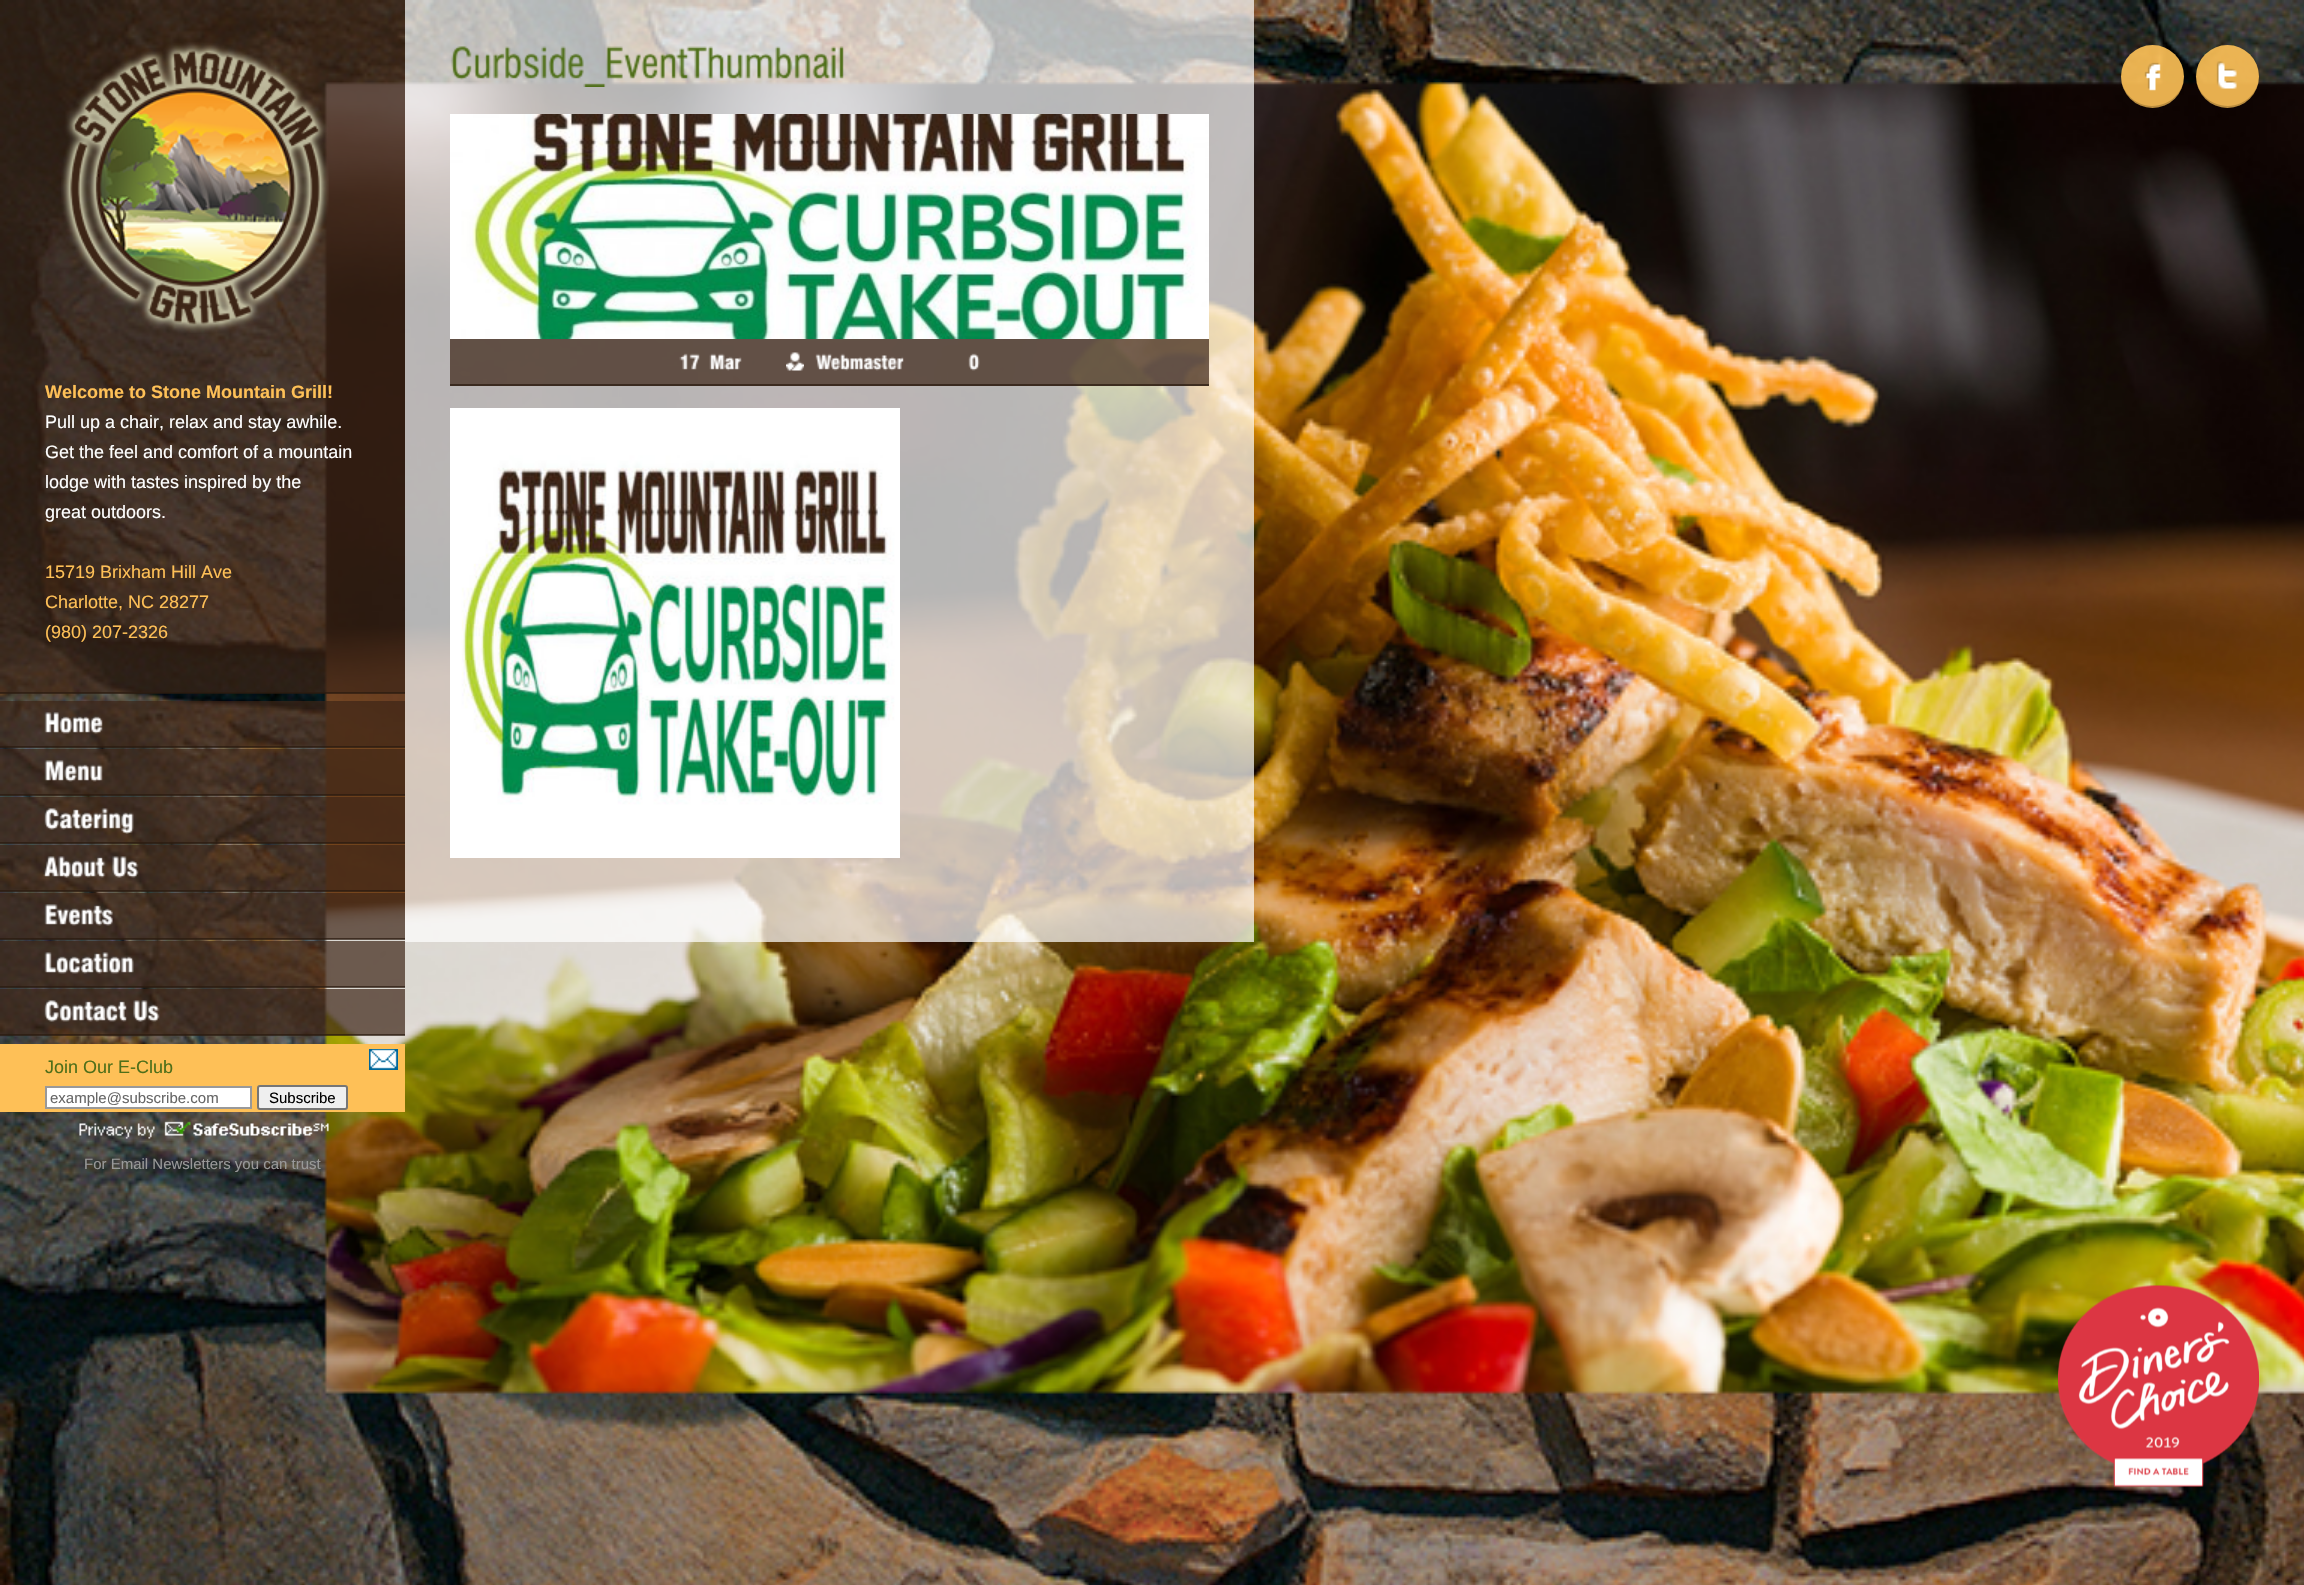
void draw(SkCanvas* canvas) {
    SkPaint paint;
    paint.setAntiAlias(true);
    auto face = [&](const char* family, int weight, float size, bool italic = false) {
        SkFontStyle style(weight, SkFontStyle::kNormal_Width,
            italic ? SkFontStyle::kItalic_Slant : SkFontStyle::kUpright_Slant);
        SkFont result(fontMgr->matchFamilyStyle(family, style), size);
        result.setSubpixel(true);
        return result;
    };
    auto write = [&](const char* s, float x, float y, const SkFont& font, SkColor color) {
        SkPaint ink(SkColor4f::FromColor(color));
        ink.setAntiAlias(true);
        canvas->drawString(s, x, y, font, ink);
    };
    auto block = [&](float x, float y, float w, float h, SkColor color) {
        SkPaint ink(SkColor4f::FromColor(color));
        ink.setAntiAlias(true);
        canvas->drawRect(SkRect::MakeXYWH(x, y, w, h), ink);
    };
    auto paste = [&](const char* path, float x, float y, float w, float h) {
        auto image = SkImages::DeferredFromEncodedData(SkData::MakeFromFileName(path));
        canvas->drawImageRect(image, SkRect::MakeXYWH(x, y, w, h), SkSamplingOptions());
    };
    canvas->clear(SK_ColorWHITE);
    paste("pic1.png", 0, 0, 2304, 1585);
    block(0, 0, 405, 693, SkColorSetARGB(179, 60, 36, 21));
    block(0, 692, 405, 2, SkColorSetARGB(179, 41, 25, 14));
    paste("pic2.png", 61, 42, 268, 291);
    auto kFont1 = face("Liberation Sans", 700, 18);
    write("Welcome to Stone Mountain Grill!", 45, 398, kFont1, SkColorSetRGB(254, 192, 87));
    auto kFont2 = face("Liberation Sans", 400, 18);
    write("Pull up a chair, relax and stay awhile.", 45, 428, kFont2, SK_ColorWHITE);
    write("Get the feel and comfort of a mountain", 45, 458, kFont2, SK_ColorWHITE);
    write("lodge with tastes inspired by the", 45, 488, kFont2, SK_ColorWHITE);
    write("great outdoors.", 45, 518, kFont2, SK_ColorWHITE);
    write("15719 Brixham Hill Ave", 45, 578, kFont2, SkColorSetRGB(254, 192, 87));
    write("Charlotte, NC 28277", 45, 608, kFont2, SkColorSetRGB(254, 192, 87));
    write("(980) 207-2326", 45, 638, kFont2, SkColorSetRGB(254, 192, 87));
    block(0, 701, 405, 46, SkColorSetARGB(179, 60, 36, 21));
    block(0, 746, 405, 2, SkColorSetARGB(179, 41, 25, 14));
    paste("pic3.png", 44, 712, 59, 22);
    block(0, 749, 405, 46, SkColorSetARGB(179, 60, 36, 21));
    block(0, 794, 405, 2, SkColorSetARGB(179, 41, 25, 14));
    paste("pic4.png", 44, 760, 59, 22);
    block(0, 797, 405, 46, SkColorSetARGB(179, 60, 36, 21));
    block(0, 842, 405, 2, SkColorSetARGB(179, 41, 25, 14));
    paste("pic5.png", 44, 807, 90, 27);
    block(0, 845, 405, 46, SkColorSetARGB(179, 60, 36, 21));
    block(0, 890, 405, 2, SkColorSetARGB(179, 41, 25, 14));
    paste("pic6.png", 43, 856, 63, 22);
    paste("pic7.png", 111, 856, 28, 22);
    block(0, 893, 405, 46, SkColorSetARGB(179, 60, 36, 21));
    block(0, 938, 405, 2, SkColorSetARGB(179, 41, 25, 14));
    paste("pic8.png", 44, 904, 69, 22);
    block(0, 941, 405, 46, SkColorSetARGB(179, 60, 36, 21));
    block(0, 986, 405, 2, SkColorSetARGB(179, 41, 25, 14));
    paste("pic9.png", 44, 952, 90, 22);
    block(0, 989, 405, 46, SkColorSetARGB(179, 60, 36, 21));
    block(0, 1034, 405, 2, SkColorSetARGB(179, 41, 25, 14));
    paste("pic10.png", 44, 1000, 83, 22);
    paste("pic11.png", 133, 1000, 27, 22);
    block(0, 1044, 405, 68, SkColorSetRGB(254, 192, 87));
    write("Join Our E-Club", 45, 1073, kFont2, SkColorSetRGB(79, 111, 25));
    block(369, 1049, 29, 21, SkColorSetRGB(0, 102, 153));
    paste("pic12.png", 370, 1049, 27, 20);
    paint.setColor(SK_ColorWHITE);
    canvas->drawRect(SkRect::MakeXYWH(46, 1087, 205, 21), paint);
    paint.setStyle(SkPaint::kStroke_Style);
    paint.setStrokeWidth(2);
    paint.setColor(SkColorSetRGB(153, 153, 153));
    canvas->drawRect(SkRect::MakeXYWH(46, 1087, 205, 21), paint);
    auto kFont3 = face("Liberation Sans", 400, 15);
    write("example@subscribe.com", 50, 1103, kFont3, SkColorSetRGB(102, 102, 102));
    paint.setStyle(SkPaint::kFill_Style);
    paint.setColor(SkColorSetRGB(239, 239, 239));
    canvas->drawRoundRect(SkRect::MakeXYWH(258, 1086, 89, 23), 2, 2, paint);
    paint.setStyle(SkPaint::kStroke_Style);
    paint.setColor(SkColorSetRGB(118, 118, 118));
    canvas->drawRoundRect(SkRect::MakeXYWH(258, 1086, 89, 23), 2, 2, paint);
    write("Subscribe", 269, 1103, kFont3, SK_ColorBLACK);
    paste("pic13.png", 79, 1121, 250, 18);
    write("For Email Newsletters you can trust", 84, 1169, kFont3, SkColorSetRGB(153, 153, 153));
    block(405, 0, 849, 942, SkColorSetARGB(179, 255, 255, 255));
    paste("pic14.png", 451, 46, 393, 41);
    block(450, 339, 759, 47, SkColorSetARGB(179, 60, 36, 21));
    block(450, 384, 759, 2, SkColorSetARGB(179, 41, 25, 14));
    paste("pic15.png", 450, 114, 759, 225);
    paste("pic16.png", 679, 353, 63, 18);
    paste("pic17.png", 786, 352, 18, 19);
    paste("pic18.png", 815, 353, 89, 18);
    paste("pic19.png", 968, 353, 12, 18);
    paste("pic20.png", 450, 408, 450, 450);
    paint.setStyle(SkPaint::kFill_Style);
    paint.setColor(SkColorSetARGB(230, 254, 193, 87));
    canvas->drawCircle(2152.5f, 76.5f, 31.5f, paint);
    paint.setColor(SkColorSetARGB(51, 0, 0, 0));
    canvas->drawPath(SkPathBuilder().moveTo(2121, 76).cubicTo(2121, 82, 2123, 89, 2126, 94).cubicTo(2144, 120, 2185, 107, 2184, 76).cubicTo(2184, 92, 2170, 106, 2152, 106).cubicTo(2135, 106, 2121, 92, 2121, 76).close().detach(), paint);
    paste("pic21.png", 2144, 62, 17, 29);
    paint.setColor(SkColorSetARGB(230, 254, 193, 87));
    canvas->drawCircle(2227.5f, 76.5f, 31.5f, paint);
    paint.setColor(SkColorSetARGB(51, 0, 0, 0));
    canvas->drawPath(SkPathBuilder().moveTo(2196, 76).cubicTo(2195, 107, 2236, 120, 2254, 94).cubicTo(2257, 89, 2259, 82, 2259, 76).cubicTo(2259, 92, 2245, 106, 2228, 106).cubicTo(2210, 106, 2196, 92, 2196, 76).close().detach(), paint);
    paste("pic22.png", 2216, 61, 21, 28);
    paste("pic23.png", 2058, 1285, 201, 202);
}
